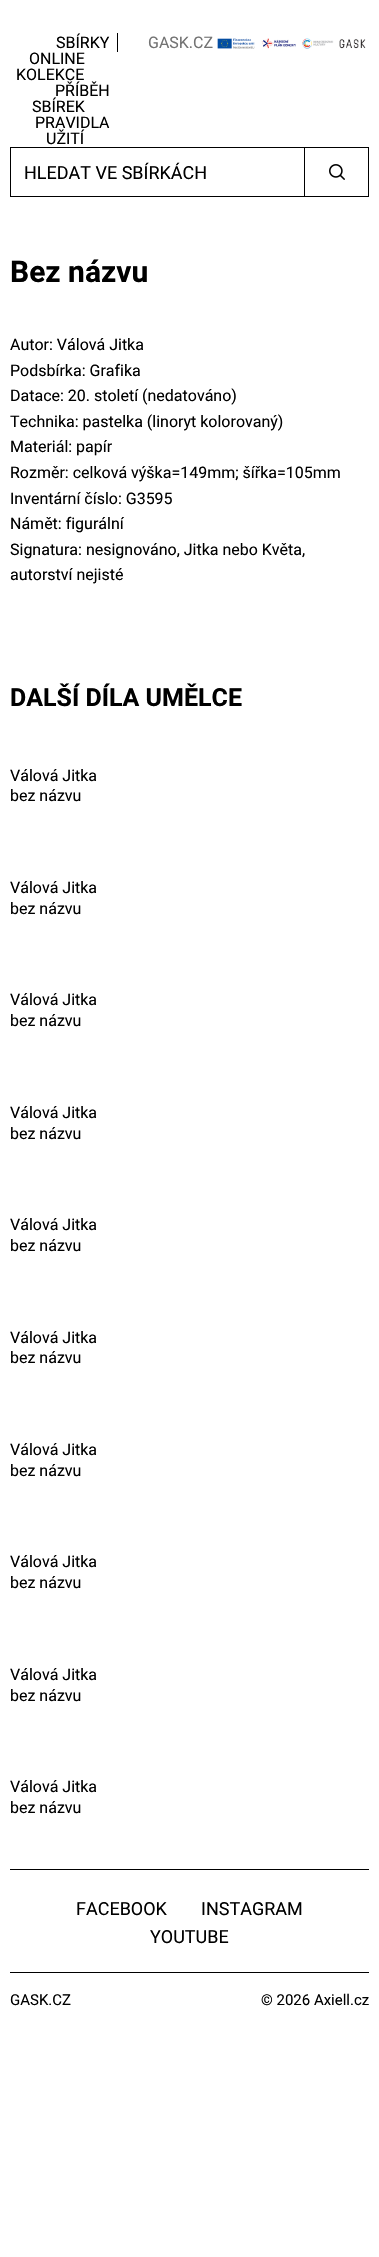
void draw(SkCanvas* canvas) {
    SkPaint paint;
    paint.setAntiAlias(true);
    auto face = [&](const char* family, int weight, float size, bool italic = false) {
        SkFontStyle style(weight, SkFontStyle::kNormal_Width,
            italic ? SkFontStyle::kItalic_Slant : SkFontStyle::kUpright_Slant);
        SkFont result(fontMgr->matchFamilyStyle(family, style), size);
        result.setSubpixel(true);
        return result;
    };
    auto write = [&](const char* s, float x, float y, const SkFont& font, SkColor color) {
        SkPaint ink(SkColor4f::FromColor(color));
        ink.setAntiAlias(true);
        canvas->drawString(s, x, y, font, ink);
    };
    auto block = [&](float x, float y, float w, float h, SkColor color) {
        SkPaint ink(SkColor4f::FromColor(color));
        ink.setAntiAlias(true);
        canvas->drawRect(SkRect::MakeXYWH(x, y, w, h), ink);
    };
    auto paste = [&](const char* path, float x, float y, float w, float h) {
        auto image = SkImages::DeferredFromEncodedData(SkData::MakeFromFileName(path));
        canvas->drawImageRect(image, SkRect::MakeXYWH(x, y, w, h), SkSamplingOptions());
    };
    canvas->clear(SK_ColorWHITE);
    auto kFont1 = face("Roboto", 400, 16);
    write("SBÍRKY", 56, 48, kFont1, SK_ColorBLACK);
    write("ONLINE", 29, 64, kFont1, SK_ColorBLACK);
    write("KOLEKCE", 16, 80, kFont1, SK_ColorBLACK);
    write("PŘÍBĚH", 55, 96, kFont1, SK_ColorBLACK);
    write("SBÍREK", 32, 112, kFont1, SK_ColorBLACK);
    write("PRAVIDLA", 35, 128, kFont1, SK_ColorBLACK);
    write("UŽITÍ", 46, 144, kFont1, SK_ColorBLACK);
    write("GASK.CZ", 148, 48, kFont1, SkColorSetRGB(115, 115, 115));
    block(117, 33, 1, 19, SK_ColorBLACK);
    paste("pic1.png", 217, 38, 149, 11);
    paint.setStyle(SkPaint::kStroke_Style);
    paint.setStrokeWidth(1);
    paint.setColor(SK_ColorBLACK);
    canvas->drawRect(SkRect::MakeXYWH(10.5f, 147.5f, 358, 49), paint);
    auto kFont2 = face("Roboto", 400, 18);
    write("HLEDAT VE SBÍRKÁCH", 24, 179, kFont2, SK_ColorBLACK);
    paste("pic2.png", 329, 164, 16, 16);
    canvas->drawRect(SkRect::MakeXYWH(304.5f, 147.5f, 64, 49), paint);
    auto kFont3 = face("Roboto", 700, 30);
    write("Bez názvu", 10, 282, kFont3, SK_ColorBLACK);
    write("Autor: Válová Jitka", 10, 350, kFont1, SK_ColorBLACK);
    write("Podsbírka: Grafika", 10, 376, kFont1, SK_ColorBLACK);
    write("Datace: 20. století (nedatováno)", 10, 401, kFont1, SK_ColorBLACK);
    write("Technika: pastelka (linoryt kolorovaný)", 10, 427, kFont1, SK_ColorBLACK);
    write("Materiál: papír", 10, 452, kFont1, SK_ColorBLACK);
    write("Rozměr: celková výška=149mm; šířka=105mm", 10, 478, kFont1, SK_ColorBLACK);
    write("Inventární číslo: G3595", 10, 504, kFont1, SK_ColorBLACK);
    write("Námět: figurální", 10, 529, kFont1, SK_ColorBLACK);
    write("Signatura: nesignováno, Jitka nebo Květa,", 10, 555, kFont1, SK_ColorBLACK);
    write("autorství nejisté", 10, 580, kFont1, SK_ColorBLACK);
    auto kFont4 = face("Roboto", 700, 25);
    write("DALŠÍ DÍLA UMĚLCE", 10, 706, kFont4, SK_ColorBLACK);
    write("Válová Jitka", 10, 781, kFont1, SK_ColorBLACK);
    write("bez názvu", 10, 801, kFont1, SK_ColorBLACK);
    write("Válová Jitka", 10, 893, kFont1, SK_ColorBLACK);
    write("bez názvu", 10, 914, kFont1, SK_ColorBLACK);
    write("Válová Jitka", 10, 1005, kFont1, SK_ColorBLACK);
    write("bez názvu", 10, 1026, kFont1, SK_ColorBLACK);
    write("Válová Jitka", 10, 1118, kFont1, SK_ColorBLACK);
    write("bez názvu", 10, 1139, kFont1, SK_ColorBLACK);
    write("Válová Jitka", 10, 1230, kFont1, SK_ColorBLACK);
    write("bez názvu", 10, 1251, kFont1, SK_ColorBLACK);
    write("Válová Jitka", 10, 1343, kFont1, SK_ColorBLACK);
    write("bez názvu", 10, 1363, kFont1, SK_ColorBLACK);
    write("Válová Jitka", 10, 1455, kFont1, SK_ColorBLACK);
    write("bez názvu", 10, 1476, kFont1, SK_ColorBLACK);
    write("Válová Jitka", 10, 1567, kFont1, SK_ColorBLACK);
    write("bez názvu", 10, 1588, kFont1, SK_ColorBLACK);
    write("Válová Jitka", 10, 1680, kFont1, SK_ColorBLACK);
    write("bez názvu", 10, 1701, kFont1, SK_ColorBLACK);
    write("Válová Jitka", 10, 1792, kFont1, SK_ColorBLACK);
    write("bez názvu", 10, 1813, kFont1, SK_ColorBLACK);
    block(10, 1869, 359, 1, SK_ColorBLACK);
    block(10, 1972, 359, 1, SK_ColorBLACK);
    write("FACEBOOK", 76, 1915, kFont2, SK_ColorBLACK);
    write("INSTAGRAM", 201, 1915, kFont2, SK_ColorBLACK);
    write("YOUTUBE", 150, 1943, kFont2, SK_ColorBLACK);
    auto kFont5 = face("Roboto", 400, 15);
    write("GASK.CZ", 10, 2005, kFont5, SK_ColorBLACK);
    write("© 2026 Axiell.cz", 261, 2005, kFont5, SK_ColorBLACK);
}
